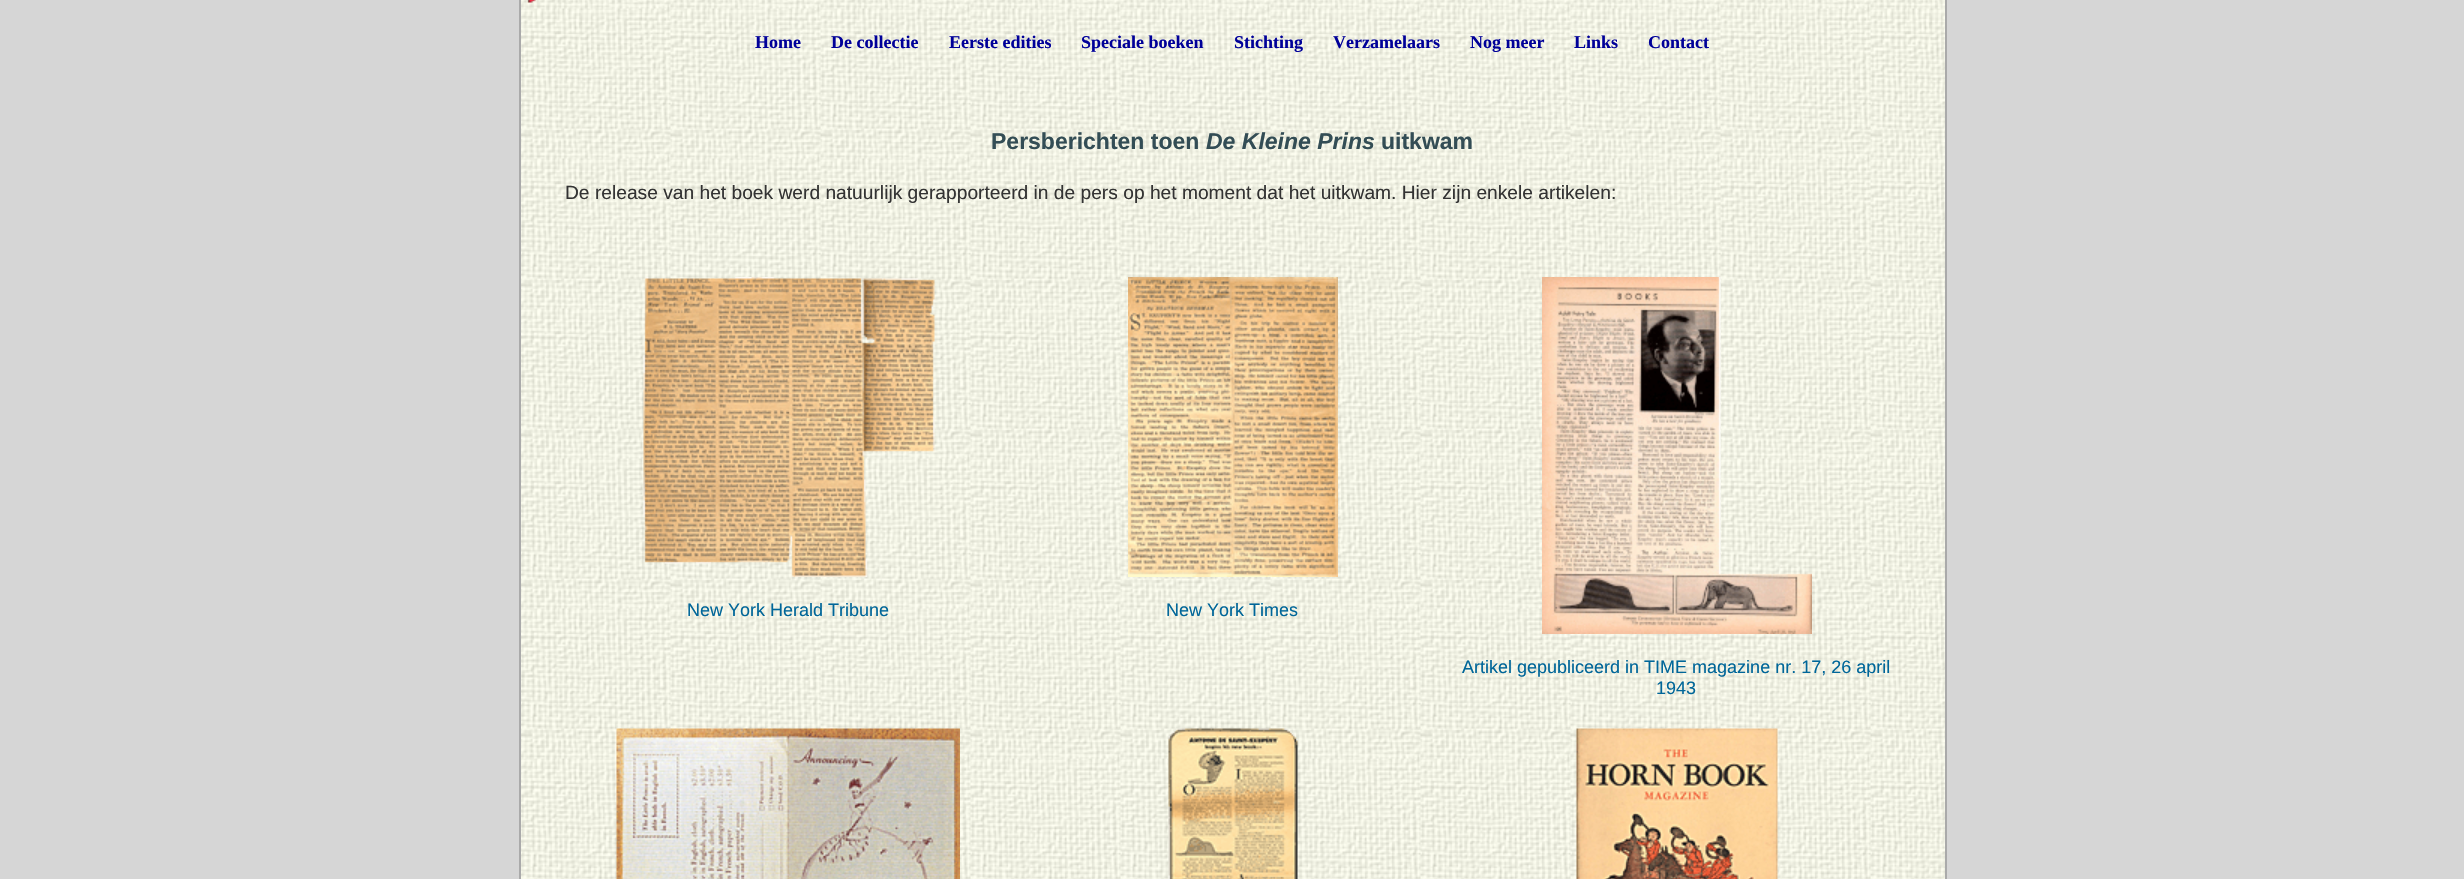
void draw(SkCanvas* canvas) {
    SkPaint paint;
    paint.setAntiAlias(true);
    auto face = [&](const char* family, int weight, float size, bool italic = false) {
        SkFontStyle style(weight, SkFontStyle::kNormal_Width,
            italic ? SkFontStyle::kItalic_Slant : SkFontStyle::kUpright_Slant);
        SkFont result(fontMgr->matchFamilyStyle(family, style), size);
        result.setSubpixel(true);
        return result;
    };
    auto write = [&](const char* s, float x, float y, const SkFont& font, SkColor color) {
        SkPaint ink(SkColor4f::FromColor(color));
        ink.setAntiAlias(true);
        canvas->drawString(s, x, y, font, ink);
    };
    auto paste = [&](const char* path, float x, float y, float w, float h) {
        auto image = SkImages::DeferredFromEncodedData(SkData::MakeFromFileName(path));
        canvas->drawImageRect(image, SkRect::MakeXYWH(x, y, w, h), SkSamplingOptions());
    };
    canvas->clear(SkColorSetRGB(214, 214, 214));
    paste("pic1.png", 521, 0, 1424, 879);
    paint.setStyle(SkPaint::kStroke_Style);
    paint.setStrokeWidth(2);
    paint.setColor(SkColorSetRGB(170, 170, 170));
    canvas->drawRect(SkRect::MakeXYWH(520, -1, 1426, 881), paint);
    paste("pic2.png", 527, 0, 9, 3);
    auto kFont1 = face("Liberation Serif", 700, 18);
    write("Home", 755, 48, kFont1, SkColorSetRGB(0, 0, 153));
    write("De collectie", 831, 48, kFont1, SkColorSetRGB(0, 0, 153));
    write("Eerste edities", 949, 48, kFont1, SkColorSetRGB(0, 0, 153));
    write("Speciale boeken", 1081, 48, kFont1, SkColorSetRGB(0, 0, 153));
    write("Stichting", 1234, 48, kFont1, SkColorSetRGB(0, 0, 153));
    write("Verzamelaars", 1333, 48, kFont1, SkColorSetRGB(0, 0, 153));
    write("Nog meer", 1470, 48, kFont1, SkColorSetRGB(0, 0, 153));
    write("Links", 1574, 48, kFont1, SkColorSetRGB(0, 0, 153));
    write("Contact", 1648, 48, kFont1, SkColorSetRGB(0, 0, 153));
    auto kFont2 = face("Liberation Sans", 700, 23);
    write("Persberichten toen", 991, 149, kFont2, SkColorSetRGB(51, 77, 85));
    auto kFont3 = face("Liberation Sans", 700, 23, true);
    write("De Kleine Prins", 1206, 149, kFont3, SkColorSetRGB(51, 77, 85));
    write("uitkwam", 1381, 149, kFont2, SkColorSetRGB(51, 77, 85));
    auto kFont4 = face("Liberation Sans", 400, 19.2f);
    write("De release van het boek werd natuurlijk gerapporteerd in de pers op het moment dat het uitkwam. Hier zijn enkele artikelen:", 565, 199, kFont4, SkColorSetRGB(51, 51, 51));
    paste("pic3.png", 643, 277, 292, 300);
    auto kFont5 = face("Liberation Sans", 400, 18);
    write("New York Herald Tribune", 687, 616, kFont5, SkColorSetRGB(0, 102, 153));
    paste("pic4.png", 1128, 277, 210, 300);
    write("New York Times", 1166, 616, kFont5, SkColorSetRGB(0, 102, 153));
    paste("pic5.png", 1542, 277, 270, 357);
    write("Artikel gepubliceerd in TIME magazine nr. 17, 26 april", 1462, 673, kFont5, SkColorSetRGB(0, 102, 153));
    write("1943", 1656, 694, kFont5, SkColorSetRGB(0, 102, 153));
    paste("pic6.png", 616, 728, 344, 151);
    paste("pic7.png", 1168, 728, 130, 151);
    paste("pic8.png", 1576, 728, 202, 151);
}
